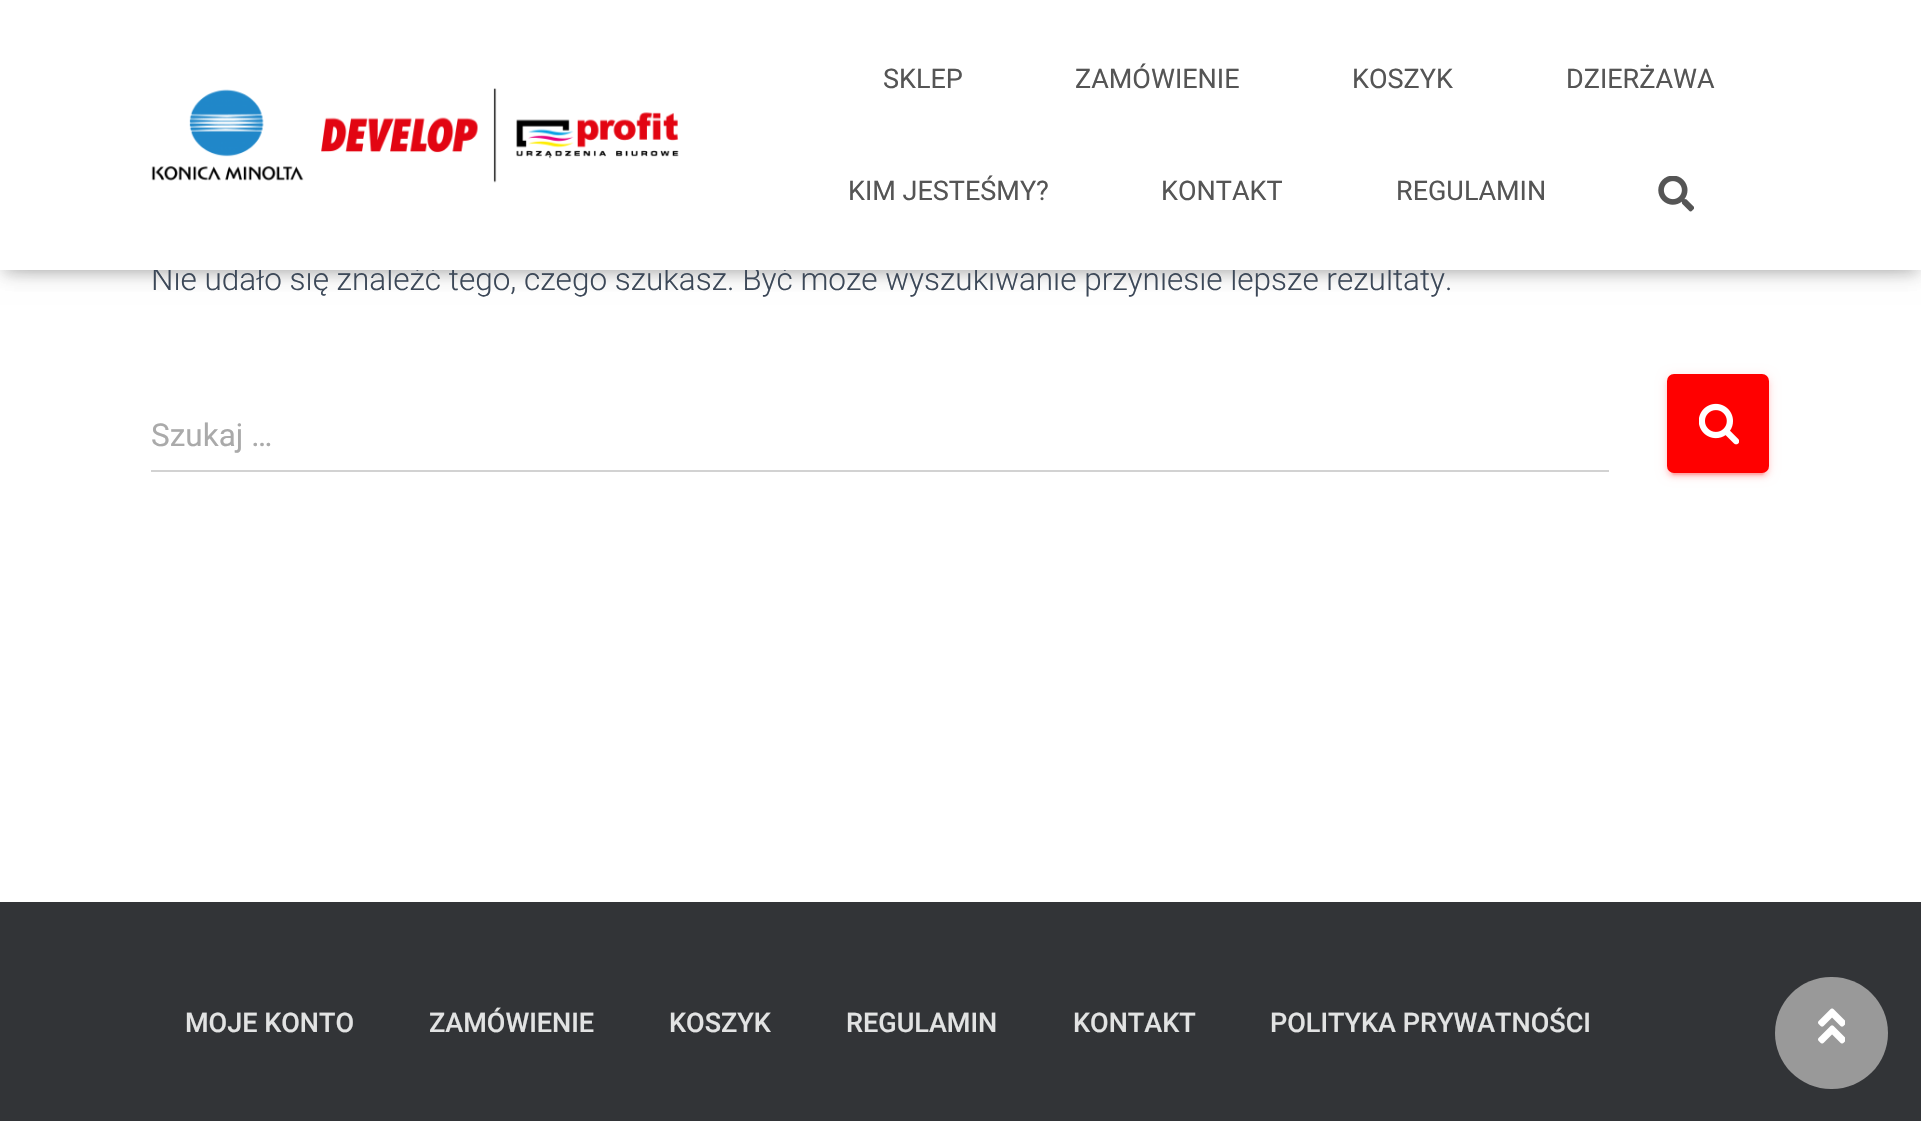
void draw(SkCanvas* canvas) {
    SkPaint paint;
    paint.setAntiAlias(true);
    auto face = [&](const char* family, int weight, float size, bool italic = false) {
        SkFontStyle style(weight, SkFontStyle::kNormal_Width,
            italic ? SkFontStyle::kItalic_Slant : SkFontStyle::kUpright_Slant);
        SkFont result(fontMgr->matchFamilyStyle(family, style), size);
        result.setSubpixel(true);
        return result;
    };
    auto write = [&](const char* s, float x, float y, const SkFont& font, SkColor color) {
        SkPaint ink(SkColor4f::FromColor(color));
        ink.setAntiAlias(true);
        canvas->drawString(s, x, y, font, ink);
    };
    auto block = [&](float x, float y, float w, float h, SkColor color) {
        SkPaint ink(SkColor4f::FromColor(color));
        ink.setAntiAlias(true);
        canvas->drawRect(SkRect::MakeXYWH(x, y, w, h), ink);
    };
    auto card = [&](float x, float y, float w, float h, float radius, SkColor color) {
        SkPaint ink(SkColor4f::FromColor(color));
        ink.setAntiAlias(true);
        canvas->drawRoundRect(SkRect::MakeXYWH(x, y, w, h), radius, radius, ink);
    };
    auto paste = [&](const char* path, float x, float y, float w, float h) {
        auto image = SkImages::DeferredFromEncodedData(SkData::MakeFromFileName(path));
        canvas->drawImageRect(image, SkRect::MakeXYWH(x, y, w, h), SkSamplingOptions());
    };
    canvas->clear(SK_ColorWHITE);
    paint.setColor(SkColorSetARGB(26, 0, 0, 0));
    paint.setMaskFilter(SkMaskFilter::MakeBlur(kNormal_SkBlurStyle, 5.5f));
    canvas->drawRect(SkRect::MakeXYWH(5, 14, 1912, 261), paint);
    paint.setMaskFilter(nullptr);
    paint.setColor(SkColorSetARGB(31, 0, 0, 0));
    paint.setMaskFilter(SkMaskFilter::MakeBlur(kNormal_SkBlurStyle, 11));
    canvas->drawRect(SkRect::MakeXYWH(0, 2, 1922, 270), paint);
    paint.setMaskFilter(nullptr);
    paint.setColor(SkColorSetARGB(107, 0, 0, 0));
    paint.setMaskFilter(SkMaskFilter::MakeBlur(kNormal_SkBlurStyle, 11));
    canvas->drawRect(SkRect::MakeXYWH(14, 16, 1894, 243), paint);
    paint.setMaskFilter(nullptr);
    auto kFont1 = face("Roboto", 300, 31.5f);
    write("Nie udało się znaleźć tego, czego szukasz. Być może wyszukiwanie przyniesie lepsze rezultaty.", 151, 290, kFont1, SkColorSetRGB(60, 72, 88));
    block(0, 0, 1921, 270, SK_ColorWHITE);
    paste("pic1.png", 151, 88, 528, 95);
    auto kFont2 = face("Roboto", 400, 27);
    write("SKLEP", 883, 88, kFont2, SkColorSetRGB(85, 85, 85));
    write("ZAMÓWIENIE", 1075, 88, kFont2, SkColorSetRGB(85, 85, 85));
    write("KOSZYK", 1352, 88, kFont2, SkColorSetRGB(85, 85, 85));
    write("DZIERŻAWA", 1566, 88, kFont2, SkColorSetRGB(85, 85, 85));
    write("KIM JESTEŚMY?", 848, 200, kFont2, SkColorSetRGB(85, 85, 85));
    write("KONTAKT", 1161, 200, kFont2, SkColorSetRGB(85, 85, 85));
    write("REGULAMIN", 1396, 200, kFont2, SkColorSetRGB(85, 85, 85));
    paste("pic2.png", 1658, 176, 36, 36);
    auto kFont3 = face("Roboto", 400, 31.5f);
    write("Szukaj …", 151, 446, kFont3, SkColorSetRGB(170, 170, 170));
    block(151, 470, 1458, 2, SkColorSetRGB(210, 210, 210));
    paint.setColor(SkColorSetARGB(31, 255, 0, 0));
    paint.setMaskFilter(SkMaskFilter::MakeBlur(kNormal_SkBlurStyle, 5.5f));
    canvas->drawRoundRect(SkRect::MakeXYWH(1667, 376, 102, 99), 7, 7, paint);
    paint.setMaskFilter(nullptr);
    paint.setColor(SkColorSetARGB(51, 255, 0, 0));
    paint.setMaskFilter(SkMaskFilter::MakeBlur(kNormal_SkBlurStyle, 1));
    canvas->drawRoundRect(SkRect::MakeXYWH(1672, 385, 92, 90), 2, 2, paint);
    paint.setMaskFilter(nullptr);
    paint.setColor(SkColorSetARGB(36, 255, 0, 0));
    paint.setMaskFilter(SkMaskFilter::MakeBlur(kNormal_SkBlurStyle, 2));
    canvas->drawRoundRect(SkRect::MakeXYWH(1667, 378, 102, 99), 7, 7, paint);
    paint.setMaskFilter(nullptr);
    card(1667, 374, 102, 99, 7, SkColorSetRGB(255, 0, 0));
    paste("pic3.png", 1699, 403, 40, 42);
    block(0, 902, 1921, 219, SkColorSetRGB(50, 52, 55));
    auto kFont4 = face("Roboto", 500, 27);
    write("MOJE KONTO", 185, 1032, kFont4, SkColorSetRGB(226, 227, 227));
    write("ZAMÓWIENIE", 429, 1032, kFont4, SkColorSetRGB(226, 227, 227));
    write("KOSZYK", 669, 1032, kFont4, SkColorSetRGB(226, 227, 227));
    write("REGULAMIN", 846, 1032, kFont4, SkColorSetRGB(226, 227, 227));
    write("KONTAKT", 1073, 1032, kFont4, SkColorSetRGB(226, 227, 227));
    write("POLITYKA PRYWATNOŚCI", 1270, 1032, kFont4, SkColorSetRGB(226, 227, 227));
    card(1775, 977, 113, 112, 56, SkColorSetRGB(153, 153, 153));
    paste("pic4.png", 1818, 1008, 27, 36);
}
